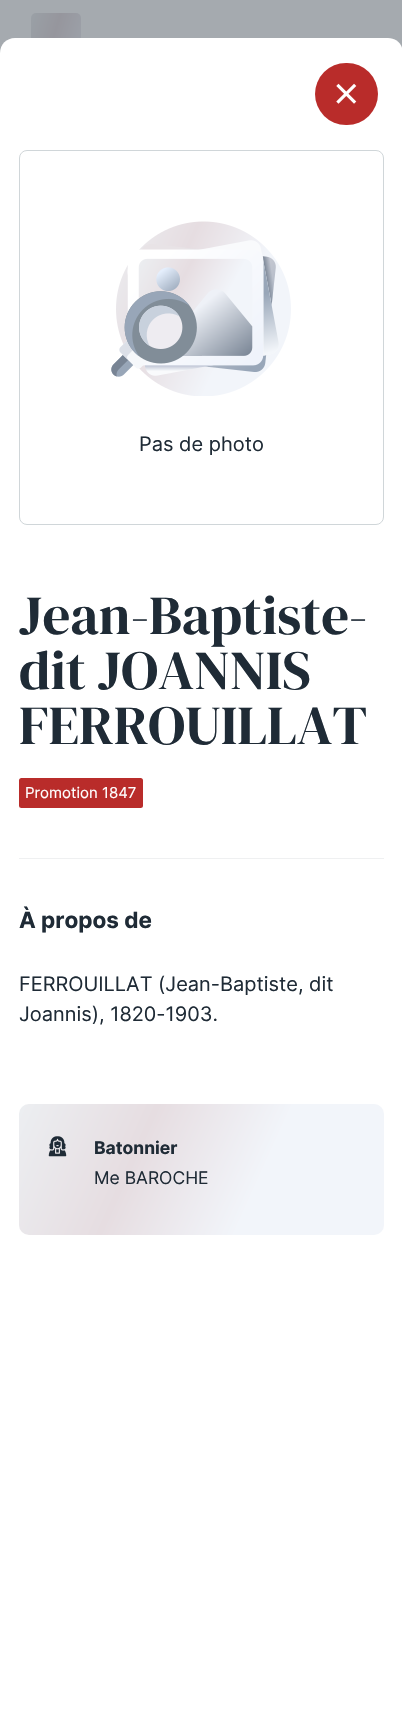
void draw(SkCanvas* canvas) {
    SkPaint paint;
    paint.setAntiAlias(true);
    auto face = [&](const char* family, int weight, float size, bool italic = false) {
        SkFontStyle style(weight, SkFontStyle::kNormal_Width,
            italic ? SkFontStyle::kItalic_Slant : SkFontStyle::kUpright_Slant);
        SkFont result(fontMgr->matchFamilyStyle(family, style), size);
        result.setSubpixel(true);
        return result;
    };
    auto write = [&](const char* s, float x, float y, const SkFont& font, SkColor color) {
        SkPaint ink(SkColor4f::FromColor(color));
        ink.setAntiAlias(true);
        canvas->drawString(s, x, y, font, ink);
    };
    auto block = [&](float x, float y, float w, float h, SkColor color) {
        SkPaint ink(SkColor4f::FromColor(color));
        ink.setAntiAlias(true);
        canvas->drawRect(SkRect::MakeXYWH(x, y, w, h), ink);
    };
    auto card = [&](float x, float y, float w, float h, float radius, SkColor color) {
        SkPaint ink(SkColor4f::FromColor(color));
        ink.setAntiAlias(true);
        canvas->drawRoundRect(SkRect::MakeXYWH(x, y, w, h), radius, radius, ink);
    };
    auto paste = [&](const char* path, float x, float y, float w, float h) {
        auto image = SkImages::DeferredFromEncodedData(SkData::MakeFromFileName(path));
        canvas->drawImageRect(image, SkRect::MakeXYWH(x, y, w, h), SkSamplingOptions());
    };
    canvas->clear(SkColorSetRGB(165, 170, 175));
    {
        const SkColor colors[] = {SkColorSetRGB(158, 164, 172), SkColorSetRGB(150, 150, 157), SkColorSetRGB(154, 160, 166)};
        const float stops[] = {0.01f, 0.57f, 0.99f};
        const SkPoint ends[] = {{88, 53}, {25, 34}};
        paint.setShader(SkGradientShader::MakeLinear(ends, colors, stops, 3, SkTileMode::kClamp));
        paint.setAlpha(255);
    }
    canvas->drawRoundRect(SkRect::MakeXYWH(31, 13, 50, 62), 5, 5, paint);
    paint.setShader(nullptr);
    paint.setColor(SK_ColorWHITE);
    canvas->drawPath(SkPathBuilder().moveTo(15, 38).lineTo(388, 38).cubicTo(396.5f, 38, 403, 44.5f, 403, 53).lineTo(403, 1711).lineTo(0, 1711).lineTo(0, 53).cubicTo(0, 44.5f, 6.5f, 38, 15, 38).close().detach(), paint);
    card(315, 63, 63, 62, 31, SkColorSetRGB(185, 44, 42));
    paste("pic1.png", 336, 83, 21, 21);
    paint.setStyle(SkPaint::kStroke_Style);
    paint.setStrokeWidth(1);
    paint.setColor(SkColorSetRGB(208, 214, 217));
    canvas->drawRoundRect(SkRect::MakeXYWH(19.5f, 150.5f, 364, 374), 7.5f, 7.5f, paint);
    paste("pic2.png", 111, 221, 180, 175);
    auto kFont1 = face("Inter", 400, 20);
    write("Pas de photo", 139, 451, kFont1, SkColorSetRGB(31, 43, 54));
    auto kFont2 = face("DM Serif Display", 400, 55);
    write("Jean-Baptiste-", 19, 634, kFont2, SkColorSetRGB(31, 43, 54));
    write("dit JOANNIS", 19, 689, kFont2, SkColorSetRGB(31, 43, 54));
    write("FERROUILLAT", 19, 744, kFont2, SkColorSetRGB(31, 43, 54));
    card(19, 778, 124, 30, 2.5f, SkColorSetRGB(185, 44, 42));
    auto kFont3 = face("Inter", 400, 15);
    write("Promotion 1847", 25, 798, kFont3, SK_ColorWHITE);
    block(19, 858, 365, 1, SkColorSetRGB(239, 240, 241));
    auto kFont4 = face("Inter", 700, 22.5f);
    write("À propos de", 19, 928, kFont4, SkColorSetRGB(31, 43, 54));
    write("FERROUILLAT (Jean-Baptiste, dit", 19, 991, kFont1, SkColorSetRGB(31, 43, 54));
    write("Joannis), 1820-1903.", 19, 1021, kFont1, SkColorSetRGB(31, 43, 54));
    paint.setStyle(SkPaint::kFill_Style);
    {
        const SkColor colors[] = {SkColorSetRGB(242, 245, 250), SkColorSetRGB(230, 221, 225), SkColorSetRGB(236, 238, 241)};
        const float stops[] = {0.35f, 0.67f, 0.99f};
        const SkPoint ends[] = {{377, 1249}, {25, 1090}};
        paint.setShader(SkGradientShader::MakeLinear(ends, colors, stops, 3, SkTileMode::kClamp));
        paint.setAlpha(255);
    }
    canvas->drawRoundRect(SkRect::MakeXYWH(19, 1104, 365, 131), 10, 10, paint);
    paste("pic3.png", 48, 1136, 19, 21);
    auto kFont5 = face("Inter", 700, 17.5f);
    write("Batonnier", 94, 1154, kFont5, SkColorSetRGB(31, 43, 54));
    auto kFont6 = face("Inter", 400, 17.5f);
    write("Me BAROCHE", 94, 1184, kFont6, SkColorSetRGB(31, 43, 54));
}
